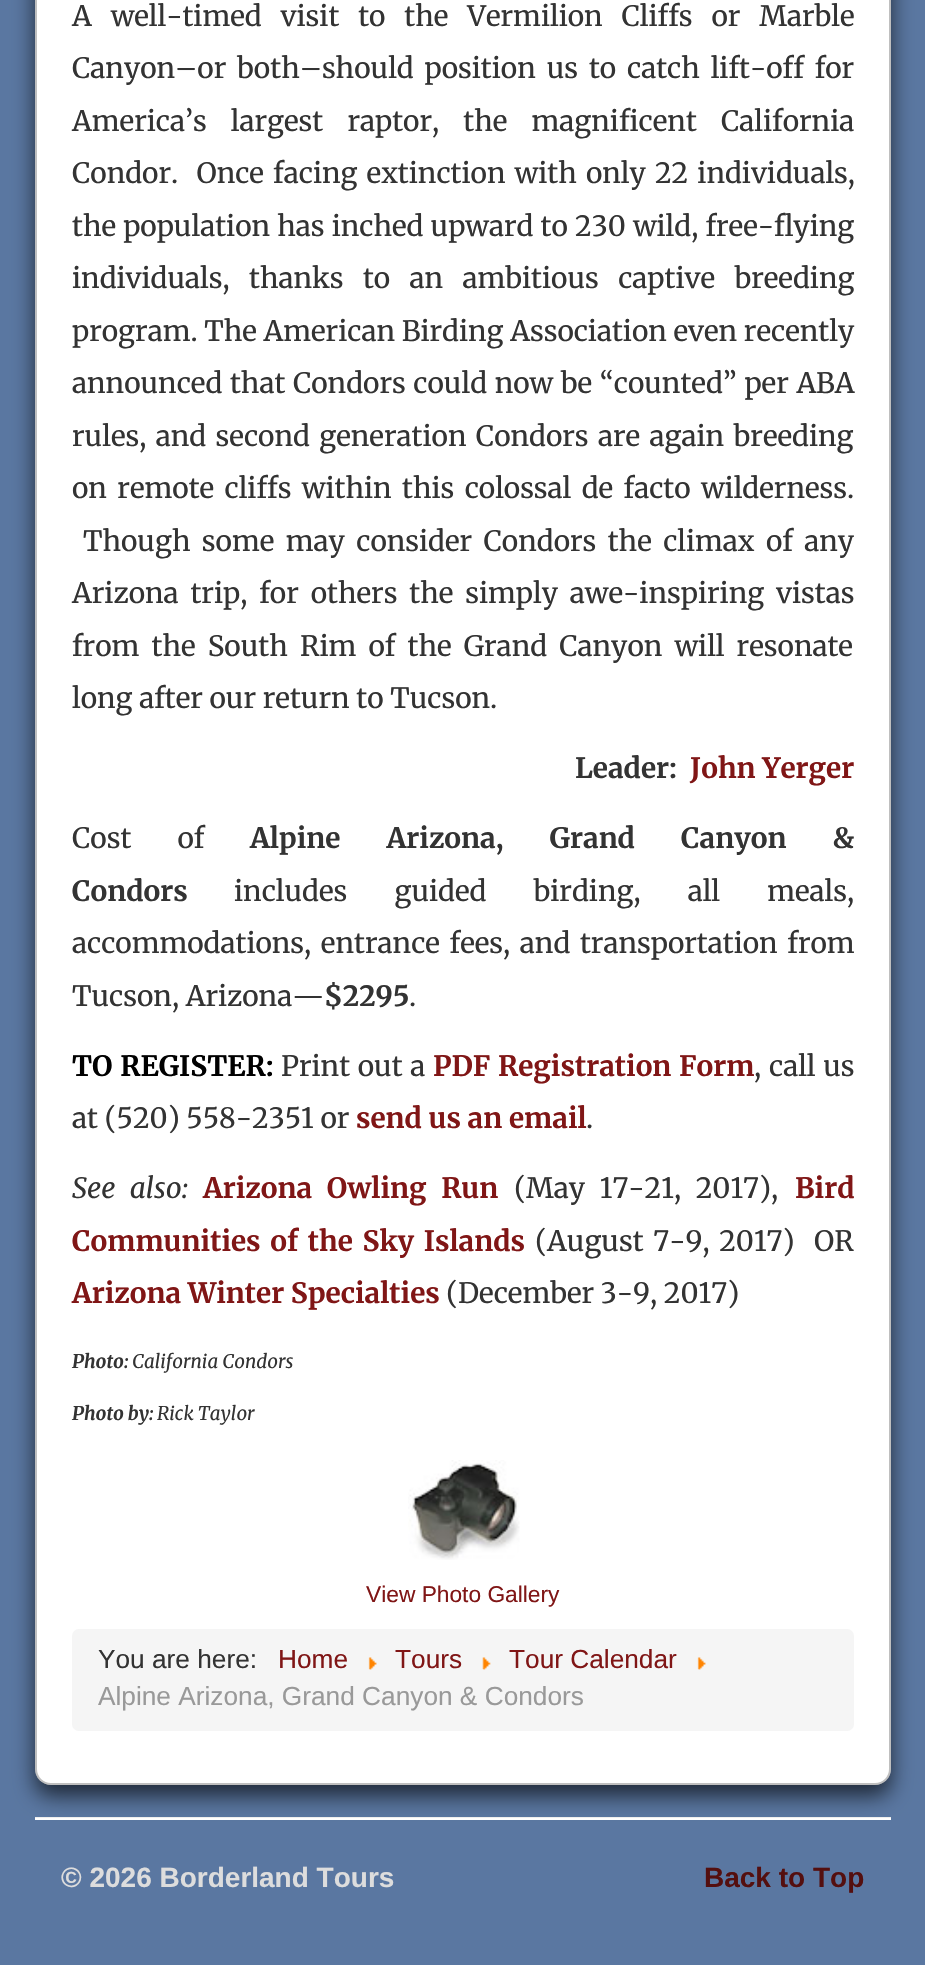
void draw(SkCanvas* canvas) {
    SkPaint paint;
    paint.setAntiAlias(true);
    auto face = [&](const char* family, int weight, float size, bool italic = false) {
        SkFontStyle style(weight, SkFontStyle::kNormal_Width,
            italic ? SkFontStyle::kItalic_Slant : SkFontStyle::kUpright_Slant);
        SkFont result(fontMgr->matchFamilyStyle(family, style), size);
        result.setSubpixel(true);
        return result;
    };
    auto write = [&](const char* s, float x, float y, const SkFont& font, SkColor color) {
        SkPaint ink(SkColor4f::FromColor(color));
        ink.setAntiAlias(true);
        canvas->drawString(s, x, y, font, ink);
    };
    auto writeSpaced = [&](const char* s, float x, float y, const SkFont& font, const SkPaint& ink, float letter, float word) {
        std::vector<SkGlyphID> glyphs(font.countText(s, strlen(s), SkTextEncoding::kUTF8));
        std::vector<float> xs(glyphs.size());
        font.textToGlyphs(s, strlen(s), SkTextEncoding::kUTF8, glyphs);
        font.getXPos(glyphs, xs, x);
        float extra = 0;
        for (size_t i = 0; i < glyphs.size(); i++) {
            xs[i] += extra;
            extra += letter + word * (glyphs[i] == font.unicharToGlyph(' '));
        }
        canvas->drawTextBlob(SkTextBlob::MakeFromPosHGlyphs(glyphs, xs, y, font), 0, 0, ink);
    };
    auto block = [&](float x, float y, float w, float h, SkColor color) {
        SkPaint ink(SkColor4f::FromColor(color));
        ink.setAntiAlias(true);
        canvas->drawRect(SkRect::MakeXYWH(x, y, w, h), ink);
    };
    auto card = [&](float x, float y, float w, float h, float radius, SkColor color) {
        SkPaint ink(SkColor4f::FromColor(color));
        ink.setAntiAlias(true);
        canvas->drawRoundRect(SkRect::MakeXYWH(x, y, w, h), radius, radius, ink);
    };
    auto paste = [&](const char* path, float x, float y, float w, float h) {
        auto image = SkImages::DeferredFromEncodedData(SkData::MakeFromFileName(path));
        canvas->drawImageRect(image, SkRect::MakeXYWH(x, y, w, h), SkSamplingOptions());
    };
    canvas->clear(SkColorSetRGB(90, 119, 161));
    paint.setColor(SkColorSetARGB(168, 0, 0, 0));
    paint.setMaskFilter(SkMaskFilter::MakeBlur(kNormal_SkBlurStyle, 10.5f));
    canvas->drawRoundRect(SkRect::MakeXYWH(35, -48, 856, 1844), 16, 16, paint);
    paint.setMaskFilter(nullptr);
    card(35, -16, 856, 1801, 16, SK_ColorWHITE);
    paint.setStyle(SkPaint::kStroke_Style);
    paint.setStrokeWidth(2);
    paint.setColor(SkColorSetARGB(64, 0, 0, 0));
    canvas->drawRoundRect(SkRect::MakeXYWH(36, -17, 854, 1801), 15, 15, paint);
    auto kFont1 = face("Merriweather", 400, 28);
    paint.setStyle(SkPaint::kFill_Style);
    paint.setColor(SkColorSetRGB(51, 51, 51));
    writeSpaced("A well-timed visit to the Vermilion Cliffs or Marble", 72, 26, kFont1, paint, 0, 12.25f);
    writeSpaced("Canyon–or both–should position us to catch lift-off for", 72, 78, kFont1, paint, 0, 4.25f);
    writeSpaced("America’s largest raptor, the magnificent California", 72, 131, kFont1, paint, 0, 17.5f);
    writeSpaced("Condor.  Once facing extinction with only 22 individuals,", 72, 183, kFont1, paint, 0, 2.5f);
    writeSpaced("the population has inched upward to 230 wild, free-flying", 72, 236, kFont1, paint, 0, 0.5f);
    writeSpaced("individuals, thanks to an ambitious captive breeding", 72, 288, kFont1, paint, 0, 12.75f);
    write("program. The American Birding Association even recently", 72, 341, kFont1, SkColorSetRGB(51, 51, 51));
    writeSpaced("announced that Condors could now be “counted” per ABA", 72, 393, kFont1, paint, 0, 1);
    writeSpaced("rules, and second generation Condors are again breeding", 72, 446, kFont1, paint, 0, 2.75f);
    writeSpaced("on remote cliffs within this colossal de facto wilderness.", 72, 498, kFont1, paint, 0, 3.75f);
    writeSpaced("Though some may consider Condors the climax of any", 83, 551, kFont1, paint, 0, 4.75f);
    writeSpaced("Arizona trip, for others the simply awe-inspiring vistas", 72, 603, kFont1, paint, 0, 5.25f);
    writeSpaced("from the South Rim of the Grand Canyon will resonate", 72, 656, kFont1, paint, 0, 5.5f);
    write("long after our return to Tucson.", 72, 708, kFont1, SkColorSetRGB(51, 51, 51));
    auto kFont2 = face("Merriweather", 700, 28);
    write("Leader:", 575, 778, kFont2, SkColorSetRGB(51, 51, 51));
    write("John Yerger", 690, 778, kFont2, SkColorSetRGB(128, 22, 22));
    writeSpaced("Cost of", 72, 848, kFont1, paint, 0, 39.5f);
    writeSpaced("Alpine Arizona, Grand Canyon &", 250, 848, kFont2, paint, 0, 39.5f);
    write("Condors", 72, 901, kFont2, SkColorSetRGB(51, 51, 51));
    writeSpaced("includes guided birding, all meals,", 234, 901, kFont1, paint, 0, 40.5f);
    writeSpaced("accommodations, entrance fees, and transportation from", 72, 953, kFont1, paint, 0, 3);
    write("Tucson, Arizona—", 72, 1006, kFont1, SkColorSetRGB(51, 51, 51));
    write("$2295", 324, 1006, kFont2, SkColorSetRGB(51, 51, 51));
    write(".", 409, 1006, kFont1, SkColorSetRGB(51, 51, 51));
    paint.setColor(SK_ColorBLACK);
    writeSpaced("TO REGISTER:", 72, 1076, kFont2, paint, 0, 1);
    paint.setColor(SkColorSetRGB(51, 51, 51));
    writeSpaced("Print out a", 281, 1076, kFont1, paint, 0, 1);
    paint.setColor(SkColorSetRGB(128, 22, 22));
    writeSpaced("PDF Registration Form", 433, 1076, kFont2, paint, 0, 1);
    write(",", 754, 1076, kFont1, SkColorSetRGB(51, 51, 51));
    paint.setColor(SkColorSetRGB(51, 51, 51));
    writeSpaced("call us", 769, 1076, kFont1, paint, 0, 1);
    write("at (520) 558-2351 or", 72, 1128, kFont1, SkColorSetRGB(51, 51, 51));
    write("send us an email", 356, 1128, kFont2, SkColorSetRGB(128, 22, 22));
    write(".", 586, 1128, kFont1, SkColorSetRGB(51, 51, 51));
    auto kFont3 = face("Merriweather", 400, 28, true);
    writeSpaced("See also:", 72, 1198, kFont3, paint, 0, 8);
    paint.setColor(SkColorSetRGB(128, 22, 22));
    writeSpaced("Arizona Owling Run", 203, 1198, kFont2, paint, 0, 8);
    paint.setColor(SkColorSetRGB(51, 51, 51));
    writeSpaced("(May 17-21, 2017),", 514, 1198, kFont1, paint, 0, 8);
    write("Bird", 795, 1198, kFont2, SkColorSetRGB(128, 22, 22));
    paint.setColor(SkColorSetRGB(128, 22, 22));
    writeSpaced("Communities of the Sky Islands", 72, 1251, kFont2, paint, 0, 3);
    paint.setColor(SkColorSetRGB(51, 51, 51));
    writeSpaced("(August 7-9, 2017)", 535, 1251, kFont1, paint, 0, 3);
    write("OR", 814, 1251, kFont1, SkColorSetRGB(51, 51, 51));
    write("Arizona Winter Specialties", 72, 1303, kFont2, SkColorSetRGB(128, 22, 22));
    write("(December 3-9, 2017)", 446, 1303, kFont1, SkColorSetRGB(51, 51, 51));
    auto kFont4 = face("Merriweather", 700, 18.75f, true);
    write("Photo:", 72, 1368, kFont4, SkColorSetRGB(51, 51, 51));
    auto kFont5 = face("Merriweather", 400, 18.75f, true);
    write("California Condors", 132, 1368, kFont5, SkColorSetRGB(51, 51, 51));
    write("Photo by:", 72, 1420, kFont4, SkColorSetRGB(51, 51, 51));
    write("Rick Taylor", 157, 1420, kFont5, SkColorSetRGB(51, 51, 51));
    paste("pic1.png", 408, 1460, 112, 100);
    auto kFont6 = face("Liberation Sans", 400, 22.75f);
    write("View Photo Gallery", 366, 1602, kFont6, SkColorSetRGB(128, 22, 22));
    card(72, 1629, 782, 102, 7, SkColorSetRGB(245, 245, 245));
    auto kFont7 = face("Liberation Sans", 400, 26.25f);
    write("You are here:", 98, 1668, kFont7, SkColorSetRGB(51, 51, 51));
    write("Home", 278, 1668, kFont7, SkColorSetRGB(128, 22, 22));
    paste("pic2.png", 368, 1657, 9, 13);
    write("Tours", 395, 1668, kFont7, SkColorSetRGB(128, 22, 22));
    paste("pic3.png", 482, 1657, 9, 13);
    write("Tour Calendar", 509, 1668, kFont7, SkColorSetRGB(128, 22, 22));
    paste("pic4.png", 697, 1657, 9, 13);
    write("Alpine Arizona, Grand Canyon & Condors", 98, 1705, kFont7, SkColorSetRGB(153, 153, 153));
    block(35, 1817, 856, 1, SkColorSetRGB(238, 238, 238));
    block(35, 1818, 856, 2, SK_ColorWHITE);
    auto kFont8 = face("Liberation Sans", 700, 28);
    write("© 2026 Borderland Tours", 61, 1887, kFont8, SkColorSetRGB(221, 221, 221));
    write("Back to Top", 704, 1887, kFont8, SkColorSetRGB(84, 15, 15));
}
